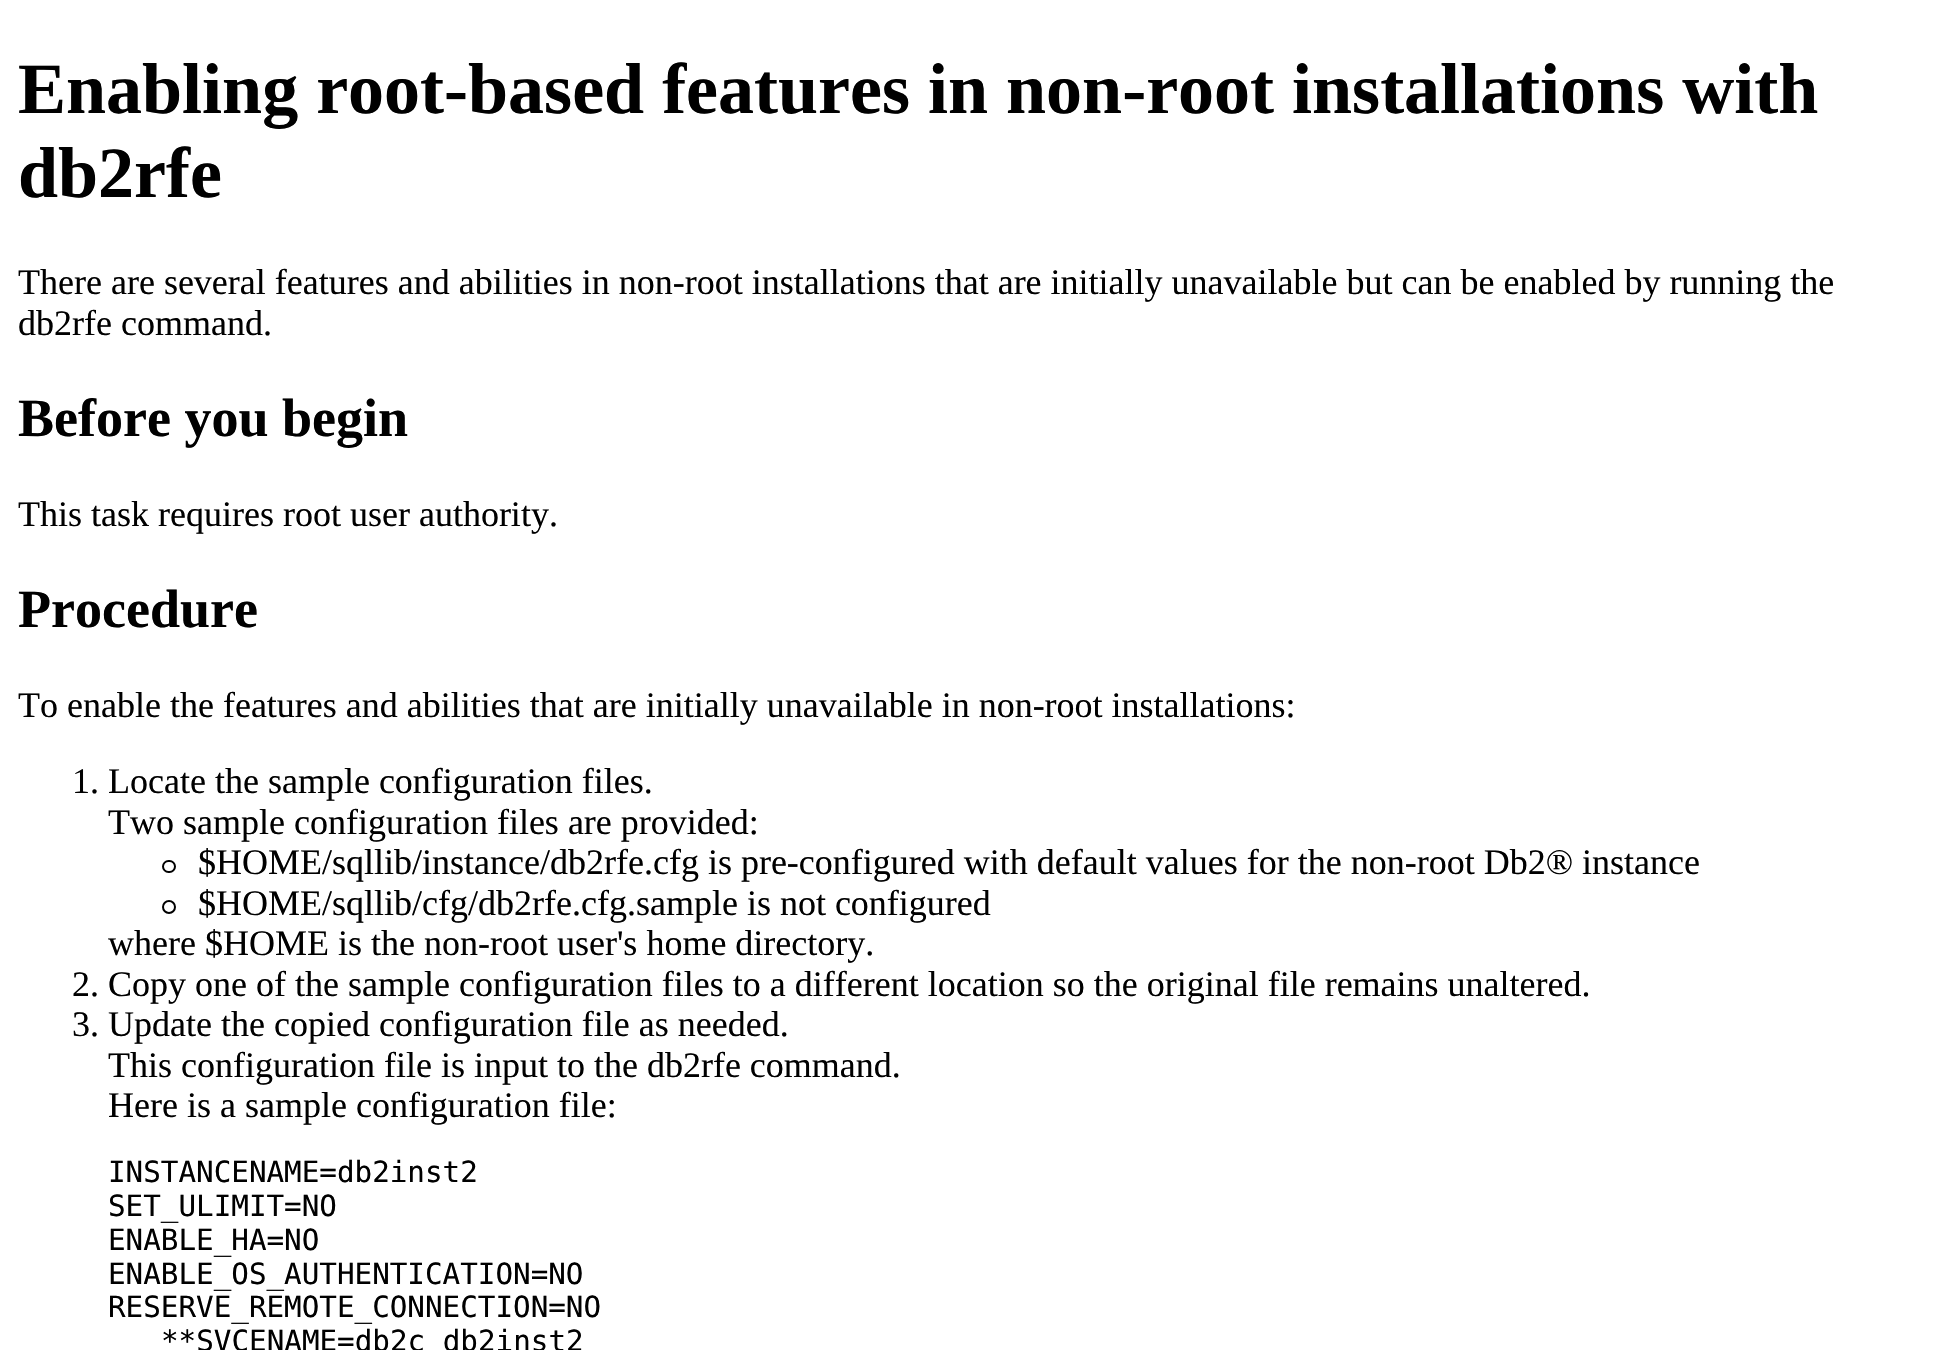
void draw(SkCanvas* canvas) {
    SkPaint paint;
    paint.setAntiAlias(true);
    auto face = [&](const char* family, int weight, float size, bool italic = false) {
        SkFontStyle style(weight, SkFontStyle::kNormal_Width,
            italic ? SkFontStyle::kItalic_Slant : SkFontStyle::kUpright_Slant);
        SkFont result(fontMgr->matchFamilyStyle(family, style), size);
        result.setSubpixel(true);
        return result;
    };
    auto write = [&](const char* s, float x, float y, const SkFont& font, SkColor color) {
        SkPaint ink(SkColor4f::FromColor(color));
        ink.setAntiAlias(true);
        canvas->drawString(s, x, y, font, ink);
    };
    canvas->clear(SK_ColorWHITE);
    auto kFont1 = face("Liberation Serif", 700, 72);
    write("Enabling root-based features in non-root installations with", 18, 113, kFont1, SK_ColorBLACK);
    write("db2rfe", 18, 197, kFont1, SK_ColorBLACK);
    auto kFont2 = face("Liberation Serif", 400, 36);
    write("There are several features and abilities in non-root installations that are initially unavailable but can be enabled by running the", 18, 294, kFont2, SK_ColorBLACK);
    write("db2rfe command.", 18, 335, kFont2, SK_ColorBLACK);
    auto kFont3 = face("Liberation Serif", 700, 54);
    write("Before you begin", 18, 436, kFont3, SK_ColorBLACK);
    write("This task requires root user authority.", 18, 526, kFont2, SK_ColorBLACK);
    write("Procedure", 18, 627, kFont3, SK_ColorBLACK);
    write("To enable the features and abilities that are initially unavailable in non-root installations:", 18, 717, kFont2, SK_ColorBLACK);
    write("1. Locate the sample configuration files.", 72, 793, kFont2, SK_ColorBLACK);
    write("Two sample configuration files are provided:", 108, 834, kFont2, SK_ColorBLACK);
    paint.setStyle(SkPaint::kStroke_Style);
    paint.setStrokeWidth(2);
    paint.setColor(SK_ColorBLACK);
    canvas->drawRoundRect(SkRect::MakeXYWH(163, 861, 12, 11), 5.5f, 5.5f, paint);
    write("$HOME/sqllib/instance/db2rfe.cfg is pre-configured with default values for the non-root Db2® instance", 198, 874, kFont2, SK_ColorBLACK);
    canvas->drawCircle(169, 907, 6, paint);
    write("$HOME/sqllib/cfg/db2rfe.cfg.sample is not configured", 198, 915, kFont2, SK_ColorBLACK);
    write("where $HOME is the non-root user's home directory.", 108, 955, kFont2, SK_ColorBLACK);
    write("2. Copy one of the sample configuration files to a different location so the original file remains unaltered.", 72, 996, kFont2, SK_ColorBLACK);
    write("3. Update the copied configuration file as needed.", 72, 1036, kFont2, SK_ColorBLACK);
    write("This configuration file is input to the db2rfe command.", 108, 1077, kFont2, SK_ColorBLACK);
    write("Here is a sample configuration file:", 108, 1117, kFont2, SK_ColorBLACK);
    auto kFont4 = face("DejaVu Sans Mono", 400, 29.25f);
    write("INSTANCENAME=db2inst2", 108, 1182, kFont4, SK_ColorBLACK);
    write("SET_ULIMIT=NO", 108, 1216, kFont4, SK_ColorBLACK);
    write("ENABLE_HA=NO", 108, 1250, kFont4, SK_ColorBLACK);
    write("ENABLE_OS_AUTHENTICATION=NO", 108, 1284, kFont4, SK_ColorBLACK);
    write("RESERVE_REMOTE_CONNECTION=NO", 108, 1317, kFont4, SK_ColorBLACK);
    write("**SVCENAME=db2c_db2inst2", 161, 1351, kFont4, SK_ColorBLACK);
}
